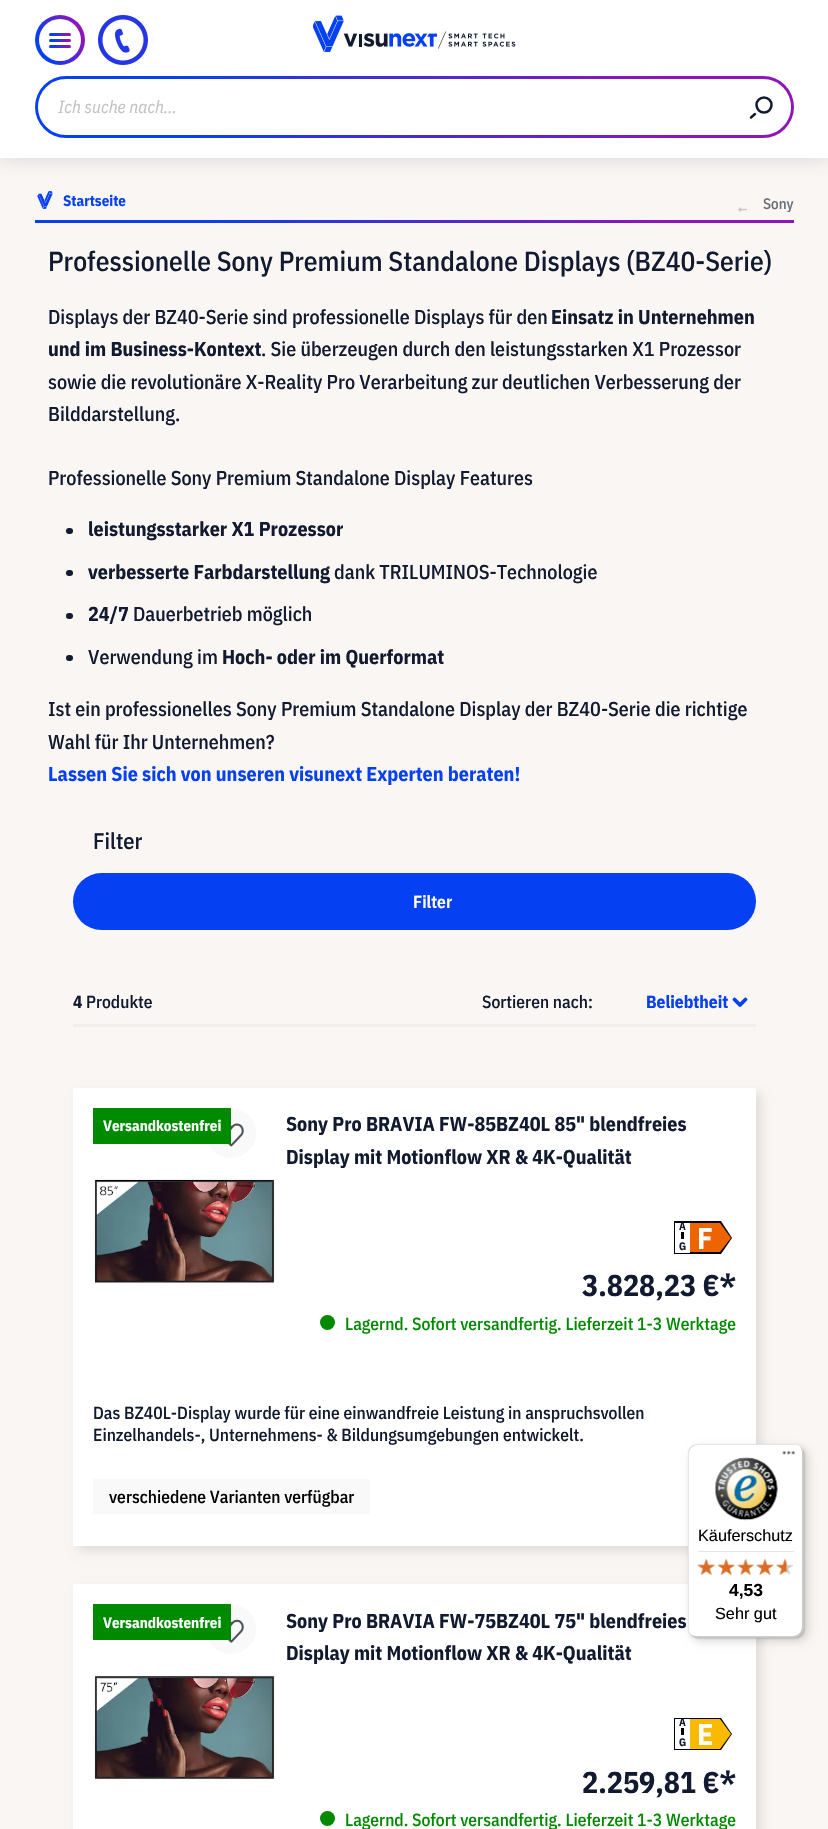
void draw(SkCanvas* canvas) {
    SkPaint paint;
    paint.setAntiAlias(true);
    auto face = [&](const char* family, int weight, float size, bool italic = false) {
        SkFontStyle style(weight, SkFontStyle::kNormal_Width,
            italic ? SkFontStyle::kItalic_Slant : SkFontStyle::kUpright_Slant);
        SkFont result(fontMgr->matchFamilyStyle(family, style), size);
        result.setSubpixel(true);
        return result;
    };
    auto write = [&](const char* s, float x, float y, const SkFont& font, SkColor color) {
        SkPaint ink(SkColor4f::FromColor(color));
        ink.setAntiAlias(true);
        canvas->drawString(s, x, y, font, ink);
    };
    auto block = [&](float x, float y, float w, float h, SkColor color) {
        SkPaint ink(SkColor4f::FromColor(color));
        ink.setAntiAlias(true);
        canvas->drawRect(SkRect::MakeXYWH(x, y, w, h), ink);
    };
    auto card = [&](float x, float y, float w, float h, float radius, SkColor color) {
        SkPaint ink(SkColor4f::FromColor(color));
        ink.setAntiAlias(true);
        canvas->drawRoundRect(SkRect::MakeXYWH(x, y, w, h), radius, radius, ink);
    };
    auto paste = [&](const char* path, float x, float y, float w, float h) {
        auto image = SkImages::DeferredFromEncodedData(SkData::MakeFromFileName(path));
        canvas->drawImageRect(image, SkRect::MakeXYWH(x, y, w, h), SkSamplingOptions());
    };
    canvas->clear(SkColorSetRGB(249, 246, 243));
    paint.setColor(SkColorSetARGB(38, 7, 17, 45));
    paint.setMaskFilter(SkMaskFilter::MakeBlur(kNormal_SkBlurStyle, 10));
    canvas->drawRect(SkRect::MakeXYWH(0, 0, 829, 158), paint);
    paint.setMaskFilter(nullptr);
    block(0, 0, 828, 158, SK_ColorWHITE);
    {
        const SkColor colors[] = {SkColorSetRGB(5, 64, 242), SkColorSetRGB(143, 20, 187)};
        const float stops[] = {0.2f, 0.83f};
        const SkPoint ends[] = {{30, 55}, {90, 25}};
        paint.setShader(SkGradientShader::MakeLinear(ends, colors, stops, 2, SkTileMode::kClamp));
        paint.setAlpha(255);
    }
    canvas->drawCircle(60, 40, 25, paint);
    paint.setShader(nullptr);
    paint.setColor(SK_ColorWHITE);
    canvas->drawCircle(60, 40, 21, paint);
    {
        const SkColor colors[] = {SkColorSetRGB(5, 64, 242), SkColorSetRGB(143, 20, 187)};
        const float stops[] = {0.2f, 0.83f};
        const SkPoint ends[] = {{50, 38}, {70, 29}};
        paint.setShader(SkGradientShader::MakeLinear(ends, colors, stops, 2, SkTileMode::kClamp));
        paint.setAlpha(255);
    }
    canvas->drawRoundRect(SkRect::MakeXYWH(49, 33, 22, 3), 1.5f, 1.5f, paint);
    {
        const SkColor colors[] = {SkColorSetRGB(5, 64, 242), SkColorSetRGB(143, 20, 187)};
        const float stops[] = {0.2f, 0.83f};
        const SkPoint ends[] = {{50, 45}, {70, 35}};
        paint.setShader(SkGradientShader::MakeLinear(ends, colors, stops, 2, SkTileMode::kClamp));
        paint.setAlpha(255);
    }
    canvas->drawRoundRect(SkRect::MakeXYWH(49, 39, 22, 3), 1.5f, 1.5f, paint);
    {
        const SkColor colors[] = {SkColorSetRGB(5, 64, 242), SkColorSetRGB(143, 20, 187)};
        const float stops[] = {0.2f, 0.83f};
        const SkPoint ends[] = {{50, 51}, {70, 42}};
        paint.setShader(SkGradientShader::MakeLinear(ends, colors, stops, 2, SkTileMode::kClamp));
        paint.setAlpha(255);
    }
    canvas->drawRoundRect(SkRect::MakeXYWH(49, 45, 22, 3), 1.5f, 1.5f, paint);
    paste("pic1.png", 98, 15, 50, 50);
    paste("pic2.png", 313, 15, 203, 37);
    {
        const SkColor colors[] = {SkColorSetRGB(5, 64, 242), SkColorSetRGB(143, 20, 187)};
        const float stops[] = {0.2f, 0.83f};
        const SkPoint ends[] = {{97, 263}, {732, -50}};
        paint.setShader(SkGradientShader::MakeLinear(ends, colors, stops, 2, SkTileMode::kClamp));
        paint.setAlpha(255);
    }
    canvas->drawRoundRect(SkRect::MakeXYWH(35, 76, 759, 62), 31, 31, paint);
    paint.setShader(nullptr);
    paint.setColor(SK_ColorWHITE);
    canvas->drawPath(SkPathBuilder().moveTo(66, 79).lineTo(733, 79).lineTo(733, 135).lineTo(66, 135).cubicTo(50.5f, 135, 38, 122.5f, 38, 107).cubicTo(38, 91.5f, 50.5f, 79, 66, 79).close().detach(), paint);
    auto kFont1 = face("IBM Plex Sans Condensed", 400, 17.5f, true);
    write("Ich suche nach...", 58, 113, kFont1, SkColorSetRGB(195, 195, 195));
    canvas->drawPath(SkPathBuilder().moveTo(731, 79).lineTo(763, 79).cubicTo(778.5f, 79, 791, 91.5f, 791, 107).cubicTo(791, 122.5f, 778.5f, 135, 763, 135).lineTo(731, 135).close().detach(), paint);
    paint.setStyle(SkPaint::kStroke_Style);
    paint.setStrokeWidth(2.5f);
    paint.setColor(SkColorSetRGB(18, 26, 48));
    canvas->drawCircle(764, 105, 7.5f, paint);
    paint.setStrokeCap(SkPaint::kRound_Cap);
    paint.setStrokeJoin(SkPaint::kRound_Join);
    canvas->drawPath(SkPathBuilder().moveTo(751, 117.5f).lineTo(755, 114).detach(), paint);
    paste("pic3.png", 37, 191, 16, 18);
    auto kFont2 = face("IBM Plex Sans Condensed", 700, 15);
    write("Startseite", 63, 206, kFont2, SkColorSetRGB(5, 64, 242));
    paste("pic4.png", 738, 207, 9, 5);
    auto kFont3 = face("IBM Plex Sans Condensed", 500, 15);
    write("Sony", 763, 209, kFont3, SkColorSetRGB(104, 108, 117));
    paint.setStyle(SkPaint::kFill_Style);
    {
        const SkColor colors[] = {SkColorSetRGB(5, 64, 242), SkColorSetRGB(143, 20, 187)};
        const float stops[] = {0.2f, 0.83f};
        const SkPoint ends[] = {{109, 372}, {720, 70}};
        paint.setShader(SkGradientShader::MakeLinear(ends, colors, stops, 2, SkTileMode::kClamp));
        paint.setAlpha(255);
    }
    canvas->drawRect(SkRect::MakeXYWH(35, 220, 759, 3), paint);
    auto kFont4 = face("IBM Plex Sans Condensed", 500, 27.5f);
    write("Professionelle Sony Premium Standalone Displays (BZ40-Serie)", 48, 271, kFont4, SkColorSetRGB(18, 26, 48));
    auto kFont5 = face("IBM Plex Sans Condensed", 500, 20);
    write("Displays der BZ40-Serie sind professionelle Displays für den", 48, 324, kFont5, SkColorSetRGB(18, 26, 48));
    auto kFont6 = face("IBM Plex Sans Condensed", 700, 20);
    write("Einsatz in Unternehmen", 551, 324, kFont6, SkColorSetRGB(18, 26, 48));
    write("und im Business-Kontext", 48, 356, kFont6, SkColorSetRGB(18, 26, 48));
    write(". Sie überzeugen durch den leistungsstarken X1 Prozessor", 261, 356, kFont5, SkColorSetRGB(18, 26, 48));
    write("sowie die revolutionäre X-Reality Pro Verarbeitung zur deutlichen Verbesserung der", 48, 389, kFont5, SkColorSetRGB(18, 26, 48));
    write("Bilddarstellung.", 48, 421, kFont5, SkColorSetRGB(18, 26, 48));
    write("Professionelle Sony Premium Standalone Display Features", 48, 485, kFont5, SkColorSetRGB(18, 26, 48));
    card(66, 528, 7, 6, 3, SkColorSetRGB(18, 26, 48));
    write("leistungsstarker X1 Prozessor", 88, 536, kFont6, SkColorSetRGB(18, 26, 48));
    card(66, 570, 7, 6, 3, SkColorSetRGB(18, 26, 48));
    write("verbesserte Farbdarstellung", 88, 579, kFont6, SkColorSetRGB(18, 26, 48));
    write("dank TRILUMINOS-Technologie", 334, 579, kFont5, SkColorSetRGB(18, 26, 48));
    card(66, 613, 7, 6, 3, SkColorSetRGB(18, 26, 48));
    write("24/7", 88, 621, kFont6, SkColorSetRGB(18, 26, 48));
    write("Dauerbetrieb möglich", 133, 621, kFont5, SkColorSetRGB(18, 26, 48));
    card(66, 655, 7, 6, 3, SkColorSetRGB(18, 26, 48));
    write("Verwendung im", 88, 664, kFont5, SkColorSetRGB(18, 26, 48));
    write("Hoch- oder im Querformat", 222, 664, kFont6, SkColorSetRGB(18, 26, 48));
    write("Ist ein professionelles Sony Premium Standalone Display der BZ40-Serie die richtige", 48, 716, kFont5, SkColorSetRGB(18, 26, 48));
    write("Wahl für Ihr Unternehmen?", 48, 749, kFont5, SkColorSetRGB(18, 26, 48));
    write("Lassen Sie sich von unseren visunext Experten beraten!", 48, 781, kFont6, SkColorSetRGB(5, 64, 242));
    auto kFont7 = face("IBM Plex Sans Condensed", 500, 22.5f);
    write("Filter", 93, 849, kFont7, SkColorSetRGB(18, 26, 48));
    card(73, 873, 683, 57, 28.5f, SkColorSetRGB(5, 64, 242));
    auto kFont8 = face("IBM Plex Sans Condensed", 600, 17.5f);
    write("Filter", 413, 908, kFont8, SK_ColorWHITE);
    block(73, 1024, 683, 3, SkColorSetRGB(242, 238, 235));
    auto kFont9 = face("IBM Plex Sans Condensed", 700, 17.5f);
    write("4", 73, 1008, kFont9, SkColorSetRGB(18, 26, 48));
    auto kFont10 = face("IBM Plex Sans Condensed", 500, 17.5f);
    write("Produkte", 86, 1008, kFont10, SkColorSetRGB(18, 26, 48));
    write("Sortieren nach:", 482, 1008, kFont10, SkColorSetRGB(18, 26, 48));
    paint.setStyle(SkPaint::kStroke_Style);
    paint.setStrokeWidth(3.8f);
    paint.setShader(nullptr);
    paint.setColor(SkColorSetRGB(5, 64, 242));
    canvas->drawPath(SkPathBuilder().moveTo(745.5f, 999.5f).lineTo(740, 1005).lineTo(734.5f, 999.5f).detach(), paint);
    write("Beliebtheit", 646, 1008, kFont9, SkColorSetRGB(5, 64, 242));
    paint.setStyle(SkPaint::kFill_Style);
    paint.setColor(SkColorSetARGB(26, 0, 0, 0));
    paint.setMaskFilter(SkMaskFilter::MakeBlur(kNormal_SkBlurStyle, 5));
    canvas->drawRect(SkRect::MakeXYWH(78, 1093, 683, 458), paint);
    paint.setMaskFilter(nullptr);
    block(73, 1088, 683, 458, SK_ColorWHITE);
    paint.setColor(SkColorSetRGB(249, 249, 249));
    canvas->drawCircle(231, 1133, 25, paint);
    paste("pic5.png", 228, 1123, 16, 24);
    block(93, 1108, 138, 36, SkColorSetRGB(0, 138, 0));
    write("Versandkostenfrei", 103, 1131, kFont2, SK_ColorWHITE);
    paste("pic6.png", 93, 1179, 183, 106);
    write("Sony Pro BRAVIA FW-85BZ40L 85\" blendfreies", 286, 1131, kFont6, SkColorSetRGB(18, 26, 48));
    write("Display mit Motionflow XR & 4K-Qualität", 286, 1164, kFont6, SkColorSetRGB(18, 26, 48));
    paint.setColor(SK_ColorBLACK);
    canvas->drawPath(SkPathBuilder().moveTo(674, 1254).lineTo(674, 1221).lineTo(721, 1221).lineTo(732, 1238).lineTo(721, 1254).close().detach(), paint);
    paint.setColor(SkColorSetRGB(236, 101, 2));
    canvas->drawPath(SkPathBuilder().moveTo(675, 1223).lineTo(720, 1223).lineTo(731, 1238).lineTo(720, 1252).lineTo(675, 1252).close().detach(), paint);
    block(675, 1223, 15, 30, SK_ColorWHITE);
    canvas->save();
    canvas->clipPath(SkPathBuilder().moveTo(675, 1222.5f).lineTo(720, 1222.5f).lineTo(731.5f, 1237.5f).lineTo(720, 1252.5f).lineTo(675, 1252.5f).close().detach(), true);
    auto kFont11 = face("IBM Plex Sans Condensed", 700, 11);
    write("A", 679, 1230, kFont11, SkColorSetRGB(18, 26, 48));
    canvas->restore();
    block(681, 1232, 3, 7, SK_ColorBLACK);
    write("G", 679, 1250, kFont11, SkColorSetRGB(18, 26, 48));
    auto kFont12 = face("IBM Plex Sans Condensed", 700, 30);
    write("F", 697, 1249, kFont12, SK_ColorWHITE);
    write("3.828,23 €*", 582, 1296, kFont12, SkColorSetRGB(18, 26, 48));
    paint.setColor(SkColorSetRGB(0, 138, 0));
    canvas->drawCircle(327.5f, 1322.5f, 7.5f, paint);
    write("Lagernd. Sofort versandfertig. Lieferzeit 1-3 Werktage", 345, 1330, kFont10, SkColorSetRGB(0, 138, 0));
    write("Das BZ40L-Display wurde für eine einwandfreie Leistung in anspruchsvollen", 93, 1419, kFont10, SkColorSetRGB(18, 26, 48));
    write("Einzelhandels-, Unternehmens- & Bildungsumgebungen entwickelt.", 93, 1441, kFont10, SkColorSetRGB(18, 26, 48));
    block(93, 1479, 277, 35, SkColorSetRGB(249, 249, 249));
    write("verschiedene Varianten verfügbar", 109, 1503, kFont10, SK_ColorBLACK);
    paint.setColor(SkColorSetARGB(26, 0, 0, 0));
    paint.setMaskFilter(SkMaskFilter::MakeBlur(kNormal_SkBlurStyle, 5));
    canvas->drawRect(SkRect::MakeXYWH(78, 1589, 683, 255), paint);
    paint.setMaskFilter(nullptr);
    block(73, 1584, 683, 245, SK_ColorWHITE);
    paint.setColor(SkColorSetRGB(249, 249, 249));
    canvas->drawCircle(231, 1629, 25, paint);
    paste("pic7.png", 228, 1619, 16, 24);
    block(93, 1604, 138, 36, SkColorSetRGB(0, 138, 0));
    write("Versandkostenfrei", 103, 1628, kFont2, SK_ColorWHITE);
    paste("pic8.png", 93, 1675, 183, 108);
    write("Sony Pro BRAVIA FW-75BZ40L 75\" blendfreies", 286, 1628, kFont6, SkColorSetRGB(18, 26, 48));
    write("Display mit Motionflow XR & 4K-Qualität", 286, 1660, kFont6, SkColorSetRGB(18, 26, 48));
    paint.setColor(SK_ColorBLACK);
    canvas->drawPath(SkPathBuilder().moveTo(674, 1718).lineTo(674, 1750).lineTo(721, 1750).lineTo(732, 1734).lineTo(721, 1718).close().detach(), paint);
    paint.setColor(SkColorSetRGB(251, 186, 2));
    canvas->drawPath(SkPathBuilder().moveTo(675, 1719).lineTo(720, 1719).lineTo(731, 1734).lineTo(720, 1749).lineTo(675, 1749).close().detach(), paint);
    block(675, 1719, 15, 30, SK_ColorWHITE);
    canvas->save();
    canvas->clipPath(SkPathBuilder().moveTo(675, 1719).lineTo(720, 1719).lineTo(731.5f, 1734).lineTo(720, 1749).lineTo(675, 1749).close().detach(), true);
    write("A", 679, 1726, kFont11, SkColorSetRGB(18, 26, 48));
    canvas->restore();
    block(681, 1728, 3, 7, SK_ColorBLACK);
    write("G", 679, 1746, kFont11, SkColorSetRGB(18, 26, 48));
    write("E", 697, 1745, kFont12, SK_ColorWHITE);
    write("2.259,81 €*", 582, 1793, kFont12, SkColorSetRGB(18, 26, 48));
    paint.setColor(SkColorSetRGB(0, 138, 0));
    canvas->drawCircle(327.5f, 1818.5f, 7.5f, paint);
    write("Lagernd. Sofort versandfertig. Lieferzeit 1-3 Werktage", 345, 1826, kFont10, SkColorSetRGB(0, 138, 0));
    paint.setColor(SkColorSetARGB(38, 0, 0, 0));
    paint.setMaskFilter(SkMaskFilter::MakeBlur(kNormal_SkBlurStyle, 5));
    canvas->drawRoundRect(SkRect::MakeXYWH(691, 1448, 117, 193), 10, 10, paint);
    paint.setMaskFilter(nullptr);
    paint.setMaskFilter(SkMaskFilter::MakeBlur(kNormal_SkBlurStyle, 1));
    canvas->drawRoundRect(SkRect::MakeXYWH(689, 1445, 116, 194), 10, 10, paint);
    paint.setMaskFilter(nullptr);
    card(688, 1444, 116, 194, 10, SK_ColorWHITE);
    paint.setColor(SkColorSetARGB(26, 0, 0, 0));
    canvas->drawPath(SkPathBuilder().moveTo(699, 1445).lineTo(795, 1445).cubicTo(797, 1445, 799, 1445, 800, 1446).cubicTo(799, 1445, 796, 1444, 794, 1444).lineTo(698, 1444).cubicTo(692, 1444, 688, 1448, 688, 1454).lineTo(688, 1628).cubicTo(688, 1631, 689, 1634, 692, 1636).cubicTo(690, 1634, 689, 1631, 689, 1629).lineTo(689, 1455).cubicTo(689, 1449, 693, 1445, 699, 1445).close().detach(), paint);
    paint.setColor(SkColorSetARGB(51, 0, 0, 0));
    canvas->drawPath(SkPathBuilder().moveTo(690, 1634).cubicTo(692, 1636, 695, 1638, 698, 1638).lineTo(794, 1638).cubicTo(800, 1638, 804, 1634, 804, 1628).lineTo(804, 1454).cubicTo(804, 1451, 802, 1448, 800, 1446).cubicTo(801, 1448, 802, 1450, 802, 1452).lineTo(802, 1626).cubicTo(802, 1632, 798, 1636, 792, 1636).lineTo(696, 1636).cubicTo(694, 1636, 692, 1635, 690, 1634).close().detach(), paint);
    paint.setColor(SkColorSetARGB(51, 50, 50, 50));
    canvas->drawPath(SkPathBuilder().moveTo(690, 1635).cubicTo(692, 1637, 695, 1638, 698, 1638).lineTo(794, 1638).cubicTo(800, 1638, 804, 1634, 804, 1628).lineTo(804, 1454).cubicTo(804, 1452, 803, 1449, 802, 1448).cubicTo(803, 1449, 803, 1451, 803, 1453).lineTo(803, 1627).cubicTo(803, 1632, 799, 1637, 793, 1637).lineTo(697, 1637).cubicTo(694, 1637, 692, 1636, 690, 1635).close().detach(), paint);
    paint.setColor(SkColorSetARGB(77, 255, 255, 255));
    canvas->drawPath(SkPathBuilder().moveTo(690, 1635).cubicTo(692, 1637, 695, 1638, 698, 1638).lineTo(794, 1638).cubicTo(800, 1638, 804, 1634, 804, 1628).lineTo(804, 1454).cubicTo(804, 1451, 803, 1448, 800, 1446).cubicTo(802, 1448, 803, 1451, 803, 1453).lineTo(803, 1627).cubicTo(803, 1632, 799, 1637, 793, 1637).lineTo(697, 1637).cubicTo(694, 1637, 692, 1636, 690, 1635).close().detach(), paint);
    paste("pic9.png", 782, 1451, 13, 4);
    paste("pic10.png", 715, 1457, 63, 64);
    auto kFont13 = face("Liberation Sans", 400, 16.25f);
    write("Käuferschutz", 698, 1541, kFont13, SK_ColorBLACK);
    block(698, 1551, 96, 1, SkColorSetRGB(229, 229, 229));
    paste("pic16.png", 697, 1559, 18, 16);
    paste("pic11.png", 697, 1558, 18, 17);
    paste("pic17.png", 718, 1559, 17, 16);
    paste("pic12.png", 717, 1558, 18, 17);
    paste("pic18.png", 737, 1559, 17, 16);
    paste("pic13.png", 737, 1558, 17, 17);
    paste("pic19.png", 756, 1559, 18, 16);
    paste("pic14.png", 756, 1558, 18, 17);
    paste("pic20.png", 776, 1559, 18, 16);
    paste("pic15.png", 776, 1558, 11, 17);
    auto kFont14 = face("Liberation Sans", 700, 17.5f);
    write("4,53", 729, 1596, kFont14, SK_ColorBLACK);
    write("Sehr gut", 715, 1619, kFont13, SK_ColorBLACK);
}
